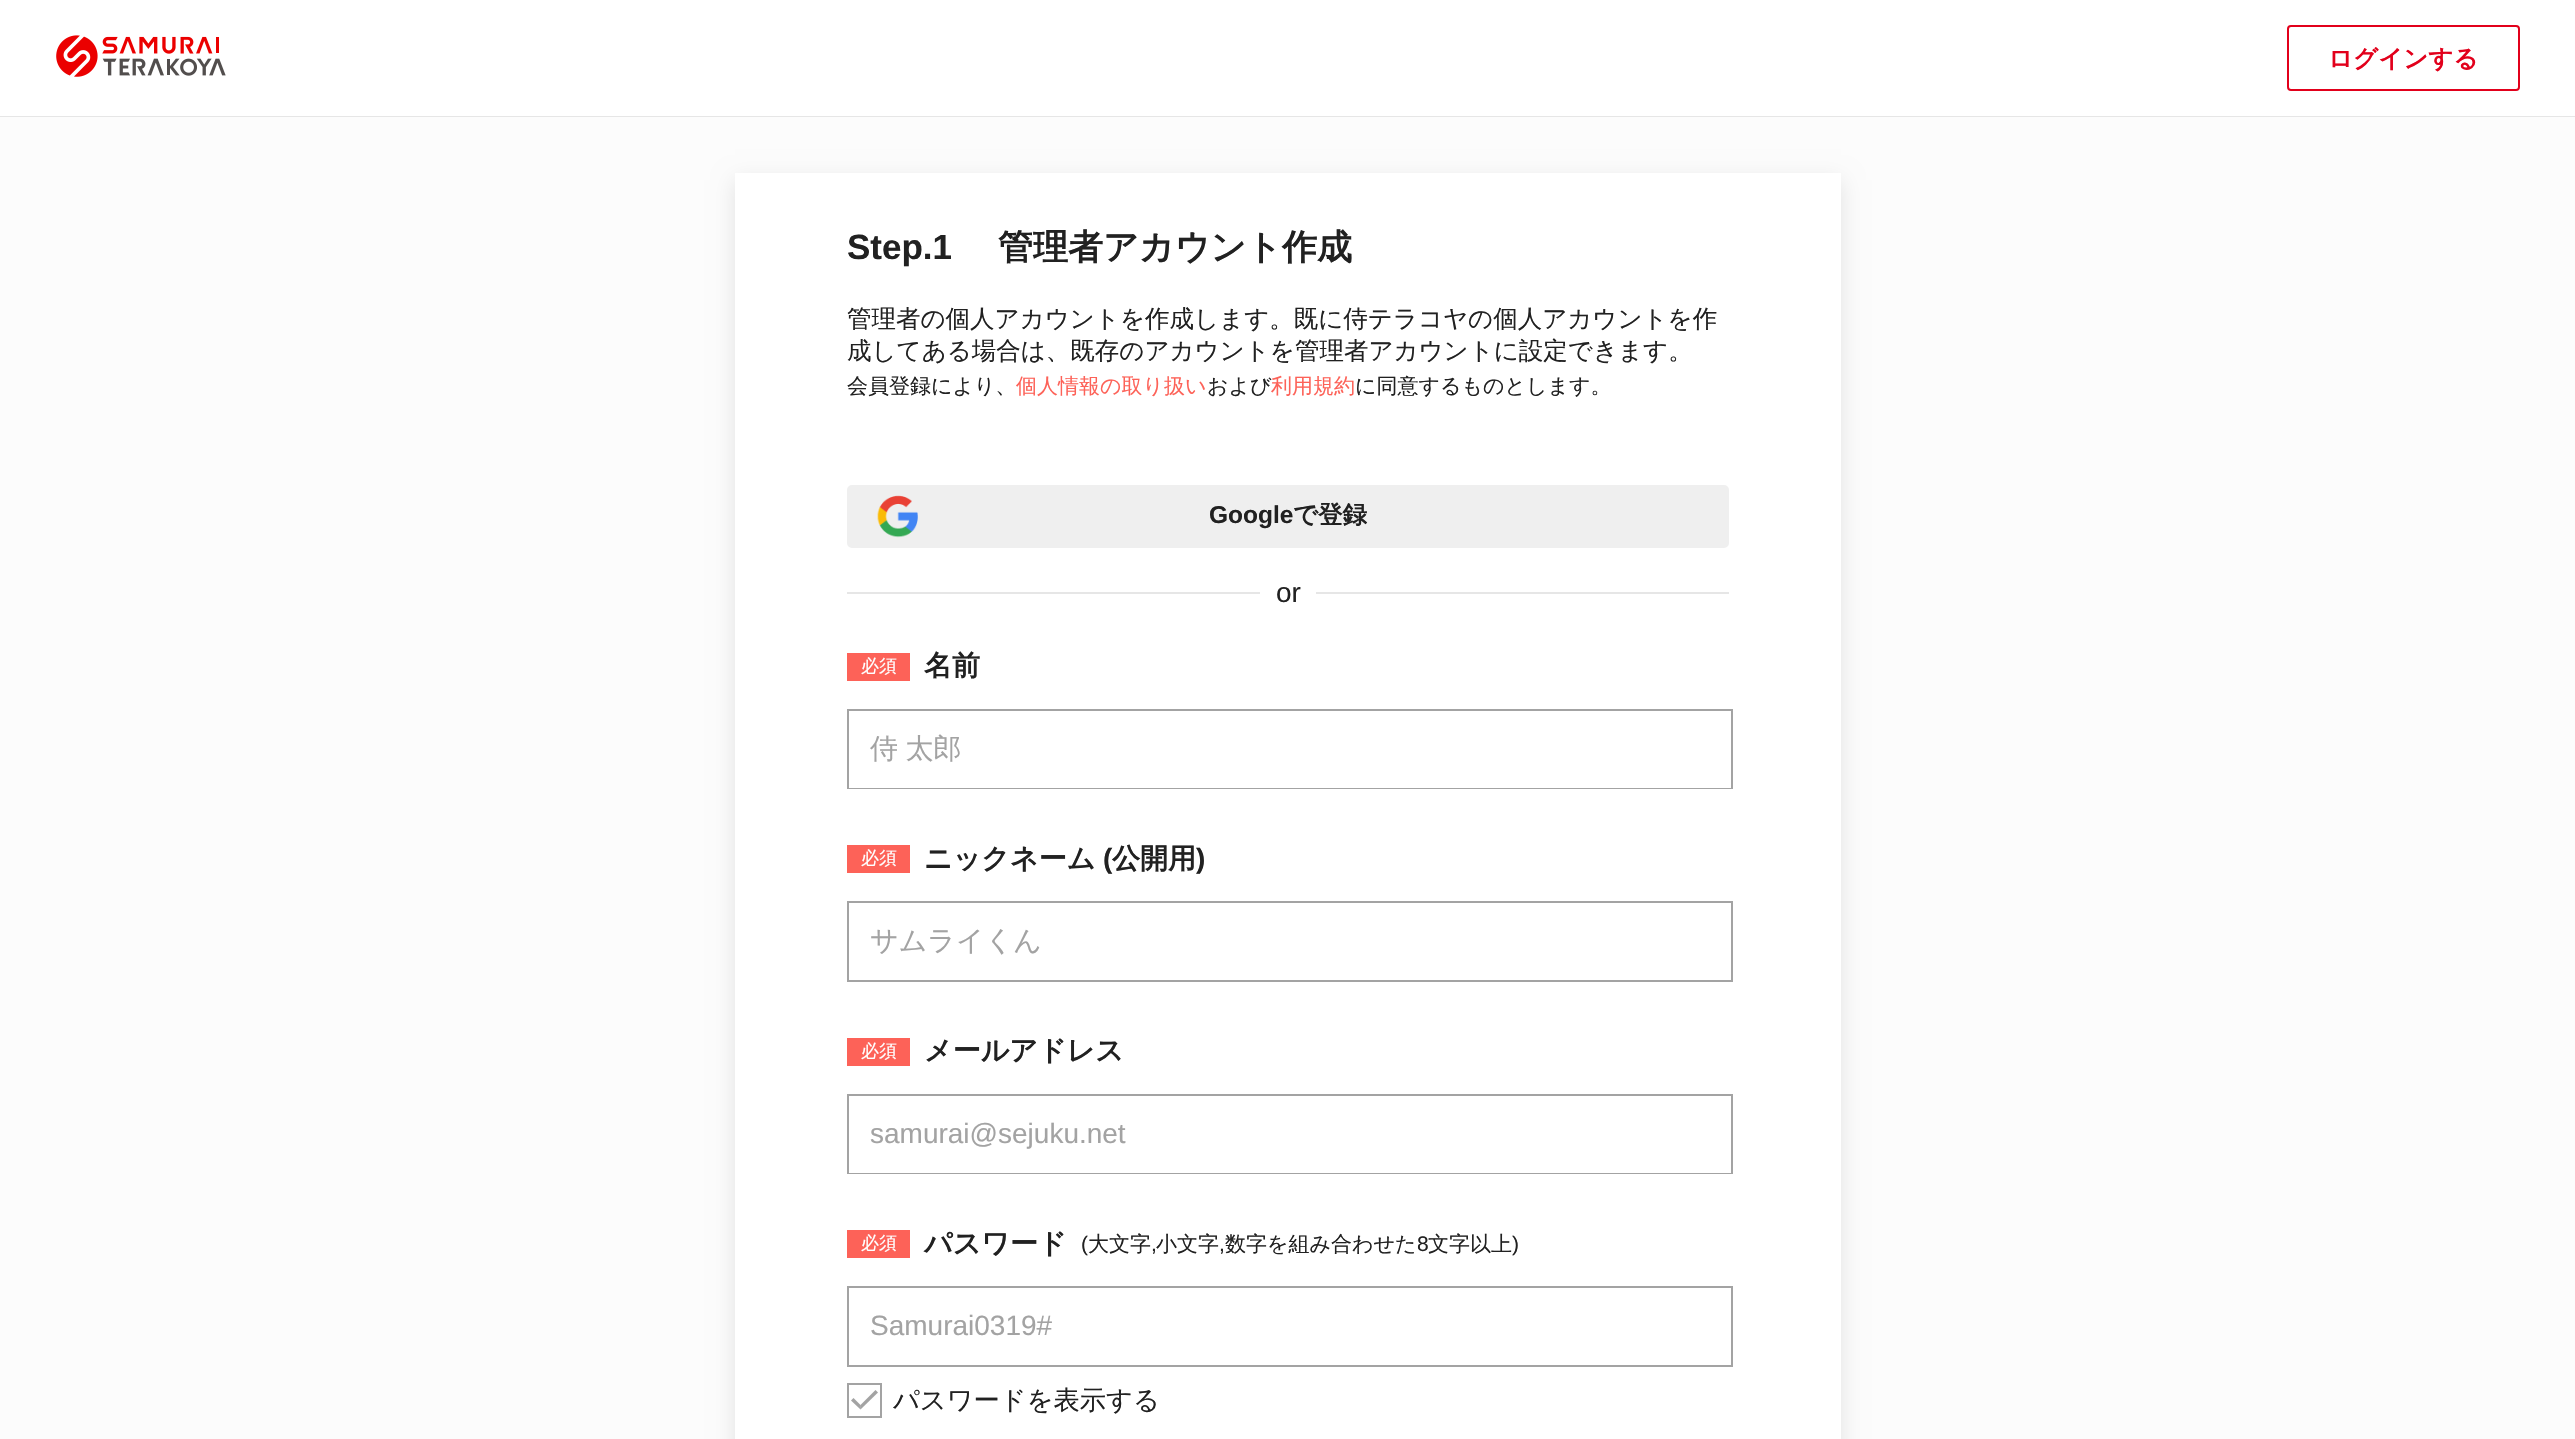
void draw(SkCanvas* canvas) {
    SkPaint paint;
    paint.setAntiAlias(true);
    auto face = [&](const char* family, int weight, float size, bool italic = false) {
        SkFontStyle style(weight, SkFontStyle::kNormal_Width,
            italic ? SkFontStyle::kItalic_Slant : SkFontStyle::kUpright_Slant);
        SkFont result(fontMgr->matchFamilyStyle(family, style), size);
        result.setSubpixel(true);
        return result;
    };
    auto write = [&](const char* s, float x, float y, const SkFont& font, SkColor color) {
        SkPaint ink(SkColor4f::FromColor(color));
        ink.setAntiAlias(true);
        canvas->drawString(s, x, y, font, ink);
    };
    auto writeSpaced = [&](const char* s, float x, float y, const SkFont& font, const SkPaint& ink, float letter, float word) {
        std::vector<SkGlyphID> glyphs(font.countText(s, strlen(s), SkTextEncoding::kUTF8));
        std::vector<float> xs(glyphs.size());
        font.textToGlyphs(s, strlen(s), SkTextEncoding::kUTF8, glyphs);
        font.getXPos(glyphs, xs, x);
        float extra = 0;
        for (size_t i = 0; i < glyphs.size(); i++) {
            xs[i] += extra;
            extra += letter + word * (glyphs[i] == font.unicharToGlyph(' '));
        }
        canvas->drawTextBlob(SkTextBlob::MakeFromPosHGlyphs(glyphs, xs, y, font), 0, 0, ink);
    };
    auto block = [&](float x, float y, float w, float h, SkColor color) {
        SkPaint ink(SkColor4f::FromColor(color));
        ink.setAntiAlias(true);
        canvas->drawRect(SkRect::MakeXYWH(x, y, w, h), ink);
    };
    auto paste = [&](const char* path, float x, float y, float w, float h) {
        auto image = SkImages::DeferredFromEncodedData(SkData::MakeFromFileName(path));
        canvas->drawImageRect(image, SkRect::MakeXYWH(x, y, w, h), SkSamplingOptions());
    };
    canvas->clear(SK_ColorWHITE);
    block(0, 116, 2575, 1, SkColorSetRGB(230, 230, 230));
    paste("pic1.png", 56, 35, 170, 42);
    paint.setStyle(SkPaint::kStroke_Style);
    paint.setStrokeWidth(2);
    paint.setColor(SkColorSetRGB(226, 0, 27));
    canvas->drawRoundRect(SkRect::MakeXYWH(2288, 26, 231, 64), 3, 3, paint);
    auto kFont1 = face("WenQuanYi Zen Hei", 700, 24.5f);
    write("ログインする", 2328, 67, kFont1, SkColorSetRGB(226, 0, 27));
    block(0, 117, 2575, 1322, SkColorSetRGB(252, 252, 252));
    paint.setStyle(SkPaint::kFill_Style);
    paint.setColor(SkColorSetARGB(26, 0, 0, 0));
    paint.setMaskFilter(SkMaskFilter::MakeBlur(kNormal_SkBlurStyle, 10.5f));
    canvas->drawRect(SkRect::MakeXYWH(735, 180, 1106, 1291), paint);
    paint.setMaskFilter(nullptr);
    block(735, 173, 1106, 1266, SK_ColorWHITE);
    auto kFont2 = face("Liberation Sans", 700, 35);
    write("Step.1", 847, 259, kFont2, SkColorSetRGB(33, 33, 33));
    auto kFont3 = face("WenQuanYi Zen Hei", 700, 35);
    write("管理者アカウント作成", 998, 259, kFont3, SkColorSetRGB(33, 33, 33));
    auto kFont4 = face("WenQuanYi Zen Hei", 500, 24.5f);
    write("管理者の個人アカウントを作成します。既に侍テラコヤの個人アカウントを作", 847, 327, kFont4, SkColorSetRGB(33, 33, 33));
    write("成してある場合は、既存のアカウントを管理者アカウントに設定できます。", 847, 359, kFont4, SkColorSetRGB(33, 33, 33));
    auto kFont5 = face("WenQuanYi Zen Hei", 500, 21);
    write("会員登録により、", 847, 393, kFont5, SkColorSetRGB(33, 33, 33));
    write("個人情報の取り扱い", 1016, 393, kFont5, SkColorSetRGB(253, 98, 88));
    write("および", 1207, 393, kFont5, SkColorSetRGB(33, 33, 33));
    write("利用規約", 1271, 393, kFont5, SkColorSetRGB(253, 98, 88));
    write("に同意するものとします。", 1355, 393, kFont5, SkColorSetRGB(33, 33, 33));
    paint.setColor(SkColorSetRGB(239, 239, 239));
    canvas->drawRoundRect(SkRect::MakeXYWH(848, 486, 880, 61), 4, 4, paint);
    paint.setStyle(SkPaint::kStroke_Style);
    canvas->drawRoundRect(SkRect::MakeXYWH(848, 486, 880, 61), 4, 4, paint);
    paste("pic2.png", 877, 495, 41, 43);
    auto kFont6 = face("Liberation Sans", 700, 24.5f);
    write("Google", 1209, 523, kFont6, SkColorSetRGB(33, 33, 33));
    write("で登録", 1293, 523, kFont1, SkColorSetRGB(33, 33, 33));
    block(847, 592, 882, 2, SkColorSetRGB(230, 230, 230));
    block(1260, 592, 56, 2, SK_ColorWHITE);
    auto kFont7 = face("Liberation Sans", 400, 28);
    write("or", 1276, 602, kFont7, SkColorSetRGB(33, 33, 33));
    block(847, 653, 63, 28, SkColorSetRGB(253, 98, 88));
    auto kFont8 = face("WenQuanYi Zen Hei", 500, 18);
    write("必須", 861, 672, kFont8, SK_ColorWHITE);
    auto kFont9 = face("WenQuanYi Zen Hei", 700, 28);
    write("名前", 924, 675, kFont9, SkColorSetRGB(33, 33, 33));
    paint.setColor(SkColorSetRGB(163, 163, 163));
    canvas->drawRect(SkRect::MakeXYWH(848, 710, 884, 78), paint);
    block(849, 787, 882, 1, SK_ColorWHITE);
    auto kFont10 = face("WenQuanYi Zen Hei", 500, 28);
    paint.setStyle(SkPaint::kFill_Style);
    writeSpaced("侍 太郎", 870, 758, kFont10, paint, 0, -1);
    block(847, 845, 63, 28, SkColorSetRGB(253, 98, 88));
    write("必須", 861, 864, kFont8, SK_ColorWHITE);
    write("ニックネーム", 924, 868, kFont9, SkColorSetRGB(33, 33, 33));
    auto kFont11 = face("Liberation Sans", 700, 28);
    write("(", 1103, 868, kFont11, SkColorSetRGB(33, 33, 33));
    write("公開用", 1112, 868, kFont9, SkColorSetRGB(33, 33, 33));
    write(")", 1196, 868, kFont11, SkColorSetRGB(33, 33, 33));
    paint.setStyle(SkPaint::kStroke_Style);
    canvas->drawRect(SkRect::MakeXYWH(848, 902, 884, 79), paint);
    write("サムライくん", 870, 950, kFont10, SkColorSetRGB(163, 163, 163));
    block(847, 1038, 63, 28, SkColorSetRGB(253, 98, 88));
    write("必須", 861, 1057, kFont8, SK_ColorWHITE);
    write("メールアドレス", 924, 1060, kFont9, SkColorSetRGB(33, 33, 33));
    canvas->drawRect(SkRect::MakeXYWH(848, 1095, 884, 78), paint);
    block(849, 1172, 882, 1, SK_ColorWHITE);
    write("samurai@sejuku.net", 870, 1143, kFont7, SkColorSetRGB(163, 163, 163));
    block(847, 1230, 63, 28, SkColorSetRGB(253, 98, 88));
    write("必須", 861, 1249, kFont8, SK_ColorWHITE);
    write("パスワード", 924, 1253, kFont9, SkColorSetRGB(33, 33, 33));
    auto kFont12 = face("Liberation Sans", 400, 21);
    write("(", 1081, 1251, kFont12, SkColorSetRGB(33, 33, 33));
    write("大文字", 1088, 1251, kFont5, SkColorSetRGB(33, 33, 33));
    write(",", 1151, 1251, kFont12, SkColorSetRGB(33, 33, 33));
    write("小文字", 1156, 1251, kFont5, SkColorSetRGB(33, 33, 33));
    write(",", 1219, 1251, kFont12, SkColorSetRGB(33, 33, 33));
    write("数字を組み合わせた", 1225, 1251, kFont5, SkColorSetRGB(33, 33, 33));
    write("8", 1417, 1251, kFont12, SkColorSetRGB(33, 33, 33));
    write("文字以上", 1428, 1251, kFont5, SkColorSetRGB(33, 33, 33));
    write(")", 1512, 1251, kFont12, SkColorSetRGB(33, 33, 33));
    canvas->drawRect(SkRect::MakeXYWH(848, 1287, 884, 79), paint);
    write("Samurai0319#", 870, 1335, kFont7, SkColorSetRGB(163, 163, 163));
    canvas->drawRect(SkRect::MakeXYWH(848, 1384, 33, 33), paint);
    auto kFont13 = face("WenQuanYi Zen Hei", 500, 26.25f);
    write("パスワードを表示する", 893, 1409, kFont13, SkColorSetRGB(33, 33, 33));
    paint.setStyle(SkPaint::kFill_Style);
    canvas->drawPath(SkPathBuilder().moveTo(878, 1392.5f).lineTo(860.5f, 1409.5f).lineTo(860.5f, 1405).lineTo(875.5f, 1390).close().detach(), paint);
    paint.setColor(SkColorSetARGB(92, 0, 0, 0));
    canvas->drawPath(SkPathBuilder().moveTo(860.5f, 1409.5f).lineTo(851, 1400.5f).lineTo(853.5f, 1398).lineTo(860.5f, 1405).close().detach(), paint);
}
